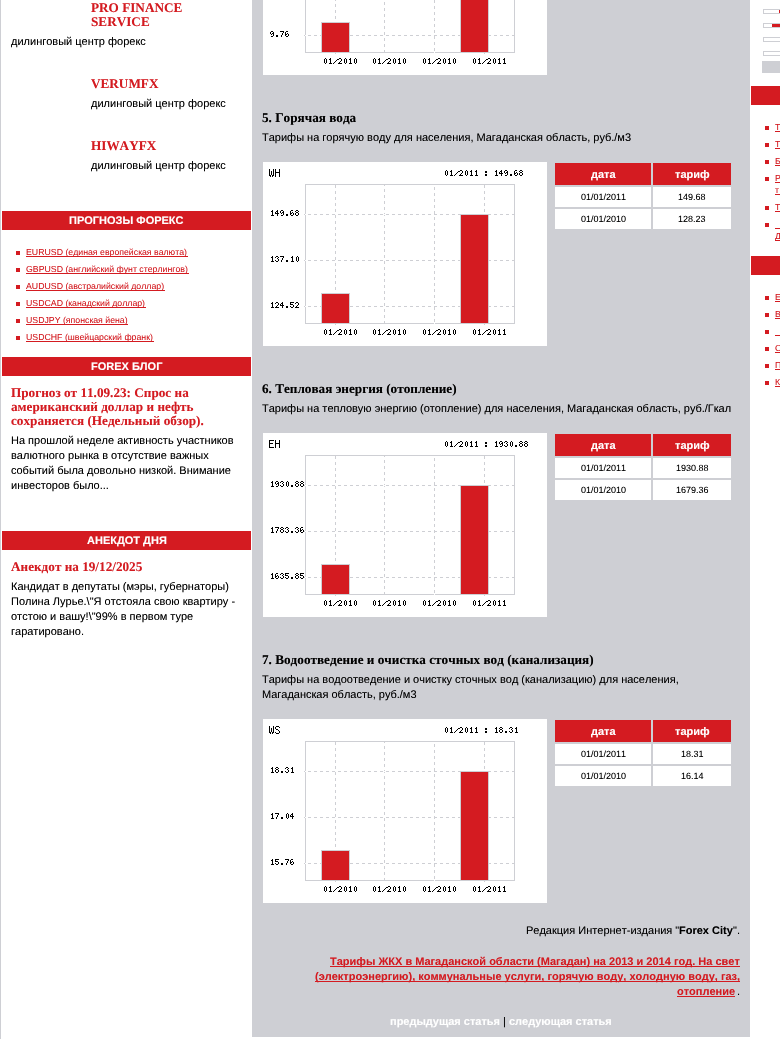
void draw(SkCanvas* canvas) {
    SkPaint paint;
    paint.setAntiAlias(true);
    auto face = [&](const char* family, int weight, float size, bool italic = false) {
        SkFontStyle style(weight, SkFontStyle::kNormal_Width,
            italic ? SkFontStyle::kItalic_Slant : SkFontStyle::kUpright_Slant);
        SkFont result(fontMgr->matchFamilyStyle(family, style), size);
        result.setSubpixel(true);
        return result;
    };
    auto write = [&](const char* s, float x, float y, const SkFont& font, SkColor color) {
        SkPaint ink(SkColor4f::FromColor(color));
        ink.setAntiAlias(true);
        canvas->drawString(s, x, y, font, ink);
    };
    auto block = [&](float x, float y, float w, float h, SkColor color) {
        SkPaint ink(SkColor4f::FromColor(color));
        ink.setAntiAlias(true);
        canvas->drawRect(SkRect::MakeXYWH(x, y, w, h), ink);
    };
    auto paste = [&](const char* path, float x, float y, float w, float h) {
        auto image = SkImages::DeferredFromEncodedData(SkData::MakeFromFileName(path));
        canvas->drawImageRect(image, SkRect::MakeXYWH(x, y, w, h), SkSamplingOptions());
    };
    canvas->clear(SK_ColorWHITE);
    paint.setStyle(SkPaint::kStroke_Style);
    paint.setStrokeWidth(1);
    paint.setColor(SkColorSetRGB(206, 207, 212));
    canvas->drawRect(SkRect::MakeXYWH(0.5f, -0.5f, 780, 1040), paint);
    auto kFont1 = face("Liberation Serif", 700, 13.2f);
    write("PRO FINANCE", 91, 12, kFont1, SkColorSetRGB(212, 27, 33));
    write("SERVICE", 91, 26, kFont1, SkColorSetRGB(212, 27, 33));
    auto kFont2 = face("Liberation Sans", 400, 11);
    write("дилинговый центр форекс", 11, 45, kFont2, SK_ColorBLACK);
    write("VERUMFX", 91, 88, kFont1, SkColorSetRGB(212, 27, 33));
    write("дилинговый центр форекс", 91, 107, kFont2, SK_ColorBLACK);
    write("HIWAYFX", 91, 150, kFont1, SkColorSetRGB(212, 27, 33));
    write("дилинговый центр форекс", 91, 169, kFont2, SK_ColorBLACK);
    block(2, 211, 249, 19, SkColorSetRGB(212, 27, 33));
    auto kFont3 = face("Liberation Sans", 700, 11);
    write("ПРОГНОЗЫ ФОРЕКС", 69, 224, kFont3, SK_ColorWHITE);
    block(16, 251, 4, 4, SkColorSetRGB(212, 27, 33));
    block(26, 256, 162, 1, SkColorSetRGB(212, 27, 33));
    auto kFont4 = face("Liberation Sans", 400, 8.75f);
    write("EURUSD (единая европейская валюта)", 26, 255, kFont4, SkColorSetRGB(212, 27, 33));
    block(16, 268, 4, 4, SkColorSetRGB(212, 27, 33));
    block(26, 273, 163, 1, SkColorSetRGB(212, 27, 33));
    write("GBPUSD (английский фунт стерлингов)", 26, 272, kFont4, SkColorSetRGB(212, 27, 33));
    block(16, 285, 4, 4, SkColorSetRGB(212, 27, 33));
    block(26, 290, 139, 1, SkColorSetRGB(212, 27, 33));
    write("AUDUSD (австралийский доллар)", 26, 289, kFont4, SkColorSetRGB(212, 27, 33));
    block(16, 302, 4, 4, SkColorSetRGB(212, 27, 33));
    block(26, 307, 120, 1, SkColorSetRGB(212, 27, 33));
    write("USDCAD (канадский доллар)", 26, 306, kFont4, SkColorSetRGB(212, 27, 33));
    block(16, 319, 4, 4, SkColorSetRGB(212, 27, 33));
    block(26, 324, 102, 1, SkColorSetRGB(212, 27, 33));
    write("USDJPY (японская йена)", 26, 323, kFont4, SkColorSetRGB(212, 27, 33));
    block(16, 336, 4, 4, SkColorSetRGB(212, 27, 33));
    block(26, 341, 128, 1, SkColorSetRGB(212, 27, 33));
    write("USDCHF (швейцарский франк)", 26, 340, kFont4, SkColorSetRGB(212, 27, 33));
    block(2, 357, 249, 19, SkColorSetRGB(212, 27, 33));
    write("FOREX БЛОГ", 91, 370, kFont3, SK_ColorWHITE);
    write("Прогноз от 11.09.23: Спрос на", 11, 397, kFont1, SkColorSetRGB(212, 27, 33));
    write("американский доллар и нефть", 11, 411, kFont1, SkColorSetRGB(212, 27, 33));
    write("сохраняется (Недельный обзор).", 11, 425, kFont1, SkColorSetRGB(212, 27, 33));
    write("На прошлой неделе активность участников", 11, 444, kFont2, SK_ColorBLACK);
    write("валютного рынка в отсутствие важных", 11, 459, kFont2, SK_ColorBLACK);
    write("событий была довольно низкой. Внимание", 11, 474, kFont2, SK_ColorBLACK);
    write("инвесторов было...", 11, 489, kFont2, SK_ColorBLACK);
    block(2, 531, 249, 19, SkColorSetRGB(212, 27, 33));
    write("АНЕКДОТ ДНЯ", 87, 544, kFont3, SK_ColorWHITE);
    write("Анекдот на 19/12/2025", 11, 571, kFont1, SkColorSetRGB(212, 27, 33));
    write("Кандидат в депутаты (мэры, губернаторы)", 11, 590, kFont2, SK_ColorBLACK);
    write("Полина Лурье.\\\"Я отстояла свою квартиру -", 11, 605, kFont2, SK_ColorBLACK);
    write("отстою и вашу!\\\"99% в первом туре", 11, 620, kFont2, SK_ColorBLACK);
    write("гаратировано.", 11, 635, kFont2, SK_ColorBLACK);
    block(252, 0, 498, 1037, SkColorSetRGB(206, 207, 212));
    block(263, 0, 284, 75, SK_ColorWHITE);
    paste("pic1.png", 270, 0, 245, 64);
    write("5. Горячая вода", 262, 122, kFont1, SK_ColorBLACK);
    write("Тарифы на горячую воду для населения, Магаданская область, руб./м3", 262, 141, kFont2, SK_ColorBLACK);
    block(263, 162, 284, 184, SK_ColorWHITE);
    paste("pic2.png", 269, 169, 254, 166);
    block(555, 163, 96, 22, SkColorSetRGB(212, 27, 33));
    write("дата", 591, 178, kFont3, SK_ColorWHITE);
    block(653, 163, 78, 22, SkColorSetRGB(212, 27, 33));
    write("тариф", 675, 178, kFont3, SK_ColorWHITE);
    block(555, 187, 96, 20, SK_ColorWHITE);
    auto kFont5 = face("Liberation Sans", 400, 9);
    write("01/01/2011", 581, 200, kFont5, SK_ColorBLACK);
    block(653, 187, 78, 20, SK_ColorWHITE);
    write("149.68", 678, 200, kFont5, SK_ColorBLACK);
    block(555, 209, 96, 20, SK_ColorWHITE);
    write("01/01/2010", 581, 222, kFont5, SK_ColorBLACK);
    block(653, 209, 78, 20, SK_ColorWHITE);
    write("128.23", 678, 222, kFont5, SK_ColorBLACK);
    write("6. Тепловая энергия (отопление)", 262, 393, kFont1, SK_ColorBLACK);
    write("Тарифы на тепловую энергию (отопление) для населения, Магаданская область, руб./Гкал", 262, 412, kFont2, SK_ColorBLACK);
    block(263, 433, 284, 184, SK_ColorWHITE);
    paste("pic3.png", 269, 440, 259, 166);
    block(555, 434, 96, 22, SkColorSetRGB(212, 27, 33));
    write("дата", 591, 449, kFont3, SK_ColorWHITE);
    block(653, 434, 78, 22, SkColorSetRGB(212, 27, 33));
    write("тариф", 675, 449, kFont3, SK_ColorWHITE);
    block(555, 458, 96, 20, SK_ColorWHITE);
    write("01/01/2011", 581, 471, kFont5, SK_ColorBLACK);
    block(653, 458, 78, 20, SK_ColorWHITE);
    write("1930.88", 676, 471, kFont5, SK_ColorBLACK);
    block(555, 480, 96, 20, SK_ColorWHITE);
    write("01/01/2010", 581, 493, kFont5, SK_ColorBLACK);
    block(653, 480, 78, 20, SK_ColorWHITE);
    write("1679.36", 676, 493, kFont5, SK_ColorBLACK);
    write("7. Водоотведение и очистка сточных вод (канализация)", 262, 664, kFont1, SK_ColorBLACK);
    write("Тарифы на водоотведение и очистку сточных вод (канализацию) для населения,", 262, 683, kFont2, SK_ColorBLACK);
    write("Магаданская область, руб./м3", 262, 698, kFont2, SK_ColorBLACK);
    block(263, 719, 284, 184, SK_ColorWHITE);
    paste("pic4.png", 269, 726, 249, 166);
    block(555, 720, 96, 22, SkColorSetRGB(212, 27, 33));
    write("дата", 591, 735, kFont3, SK_ColorWHITE);
    block(653, 720, 78, 22, SkColorSetRGB(212, 27, 33));
    write("тариф", 675, 735, kFont3, SK_ColorWHITE);
    block(555, 744, 96, 20, SK_ColorWHITE);
    write("01/01/2011", 581, 757, kFont5, SK_ColorBLACK);
    block(653, 744, 78, 20, SK_ColorWHITE);
    write("18.31", 681, 757, kFont5, SK_ColorBLACK);
    block(555, 766, 96, 20, SK_ColorWHITE);
    write("01/01/2010", 581, 779, kFont5, SK_ColorBLACK);
    block(653, 766, 78, 20, SK_ColorWHITE);
    write("16.14", 681, 779, kFont5, SK_ColorBLACK);
    write("Редакция Интернет-издания \"", 526, 934, kFont2, SK_ColorBLACK);
    write("Forex City", 679, 934, kFont3, SK_ColorBLACK);
    write("\".", 733, 934, kFont2, SK_ColorBLACK);
    block(330, 966, 410, 1, SkColorSetRGB(212, 27, 33));
    write("Тарифы ЖКХ в Магаданской области (Магадан) на 2013 и 2014 год. На свет", 330, 965, kFont3, SkColorSetRGB(212, 27, 33));
    block(315, 981, 425, 1, SkColorSetRGB(212, 27, 33));
    write("(электроэнергию), коммунальные услуги, горячую воду, холодную воду, газ,", 315, 980, kFont3, SkColorSetRGB(212, 27, 33));
    write("отопление", 677, 995, kFont3, SkColorSetRGB(212, 27, 33));
    block(677, 996, 58, 1, SkColorSetRGB(212, 27, 33));
    write(".", 737, 995, kFont2, SK_ColorBLACK);
    write("предыдущая статья", 390, 1025, kFont3, SK_ColorWHITE);
    write("|", 503, 1025, kFont2, SK_ColorBLACK);
    write("следующая статья", 509, 1025, kFont3, SK_ColorWHITE);
    canvas->drawRect(SkRect::MakeXYWH(763.5f, 9.5f, 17, 4), paint);
    block(779, 10, 1, 3, SkColorSetRGB(212, 27, 33));
    canvas->drawRect(SkRect::MakeXYWH(763.5f, 23.5f, 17, 4), paint);
    block(772, 24, 8, 3, SkColorSetRGB(212, 27, 33));
    canvas->drawRect(SkRect::MakeXYWH(763.5f, 37.5f, 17, 4), paint);
    canvas->drawRect(SkRect::MakeXYWH(763.5f, 51.5f, 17, 4), paint);
    block(762, 61, 18, 12, SkColorSetRGB(206, 207, 212));
    block(751, 86, 29, 19, SkColorSetRGB(212, 27, 33));
    block(765, 126, 4, 4, SkColorSetRGB(212, 27, 33));
    write("Т", 775, 130, kFont4, SkColorSetRGB(212, 27, 33));
    block(775, 131, 5, 1, SkColorSetRGB(212, 27, 33));
    block(765, 143, 4, 4, SkColorSetRGB(212, 27, 33));
    write("Т", 775, 147, kFont4, SkColorSetRGB(212, 27, 33));
    block(775, 148, 5, 1, SkColorSetRGB(212, 27, 33));
    block(765, 160, 4, 4, SkColorSetRGB(212, 27, 33));
    write("Б", 775, 164, kFont4, SkColorSetRGB(212, 27, 33));
    block(775, 165, 5, 1, SkColorSetRGB(212, 27, 33));
    block(765, 177, 4, 4, SkColorSetRGB(212, 27, 33));
    write("P", 775, 181, kFont4, SkColorSetRGB(212, 27, 33));
    block(775, 182, 5, 1, SkColorSetRGB(212, 27, 33));
    write("т", 775, 193, kFont4, SkColorSetRGB(212, 27, 33));
    block(775, 194, 5, 1, SkColorSetRGB(212, 27, 33));
    block(765, 206, 4, 4, SkColorSetRGB(212, 27, 33));
    write("Т", 775, 210, kFont4, SkColorSetRGB(212, 27, 33));
    block(775, 211, 5, 1, SkColorSetRGB(212, 27, 33));
    block(765, 223, 4, 4, SkColorSetRGB(212, 27, 33));
    block(775, 240, 5, 1, SkColorSetRGB(212, 27, 33));
    write("Д", 775, 239, kFont4, SkColorSetRGB(212, 27, 33));
    block(775, 228, 5, 1, SkColorSetRGB(212, 27, 33));
    block(751, 256, 29, 19, SkColorSetRGB(212, 27, 33));
    block(765, 296, 4, 4, SkColorSetRGB(212, 27, 33));
    write("Е", 775, 300, kFont4, SkColorSetRGB(212, 27, 33));
    block(775, 301, 5, 1, SkColorSetRGB(212, 27, 33));
    block(765, 313, 4, 4, SkColorSetRGB(212, 27, 33));
    write("В", 775, 317, kFont4, SkColorSetRGB(212, 27, 33));
    block(775, 318, 5, 1, SkColorSetRGB(212, 27, 33));
    block(765, 330, 4, 4, SkColorSetRGB(212, 27, 33));
    block(775, 335, 5, 1, SkColorSetRGB(212, 27, 33));
    block(765, 347, 4, 4, SkColorSetRGB(212, 27, 33));
    write("С", 775, 351, kFont4, SkColorSetRGB(212, 27, 33));
    block(775, 352, 5, 1, SkColorSetRGB(212, 27, 33));
    block(765, 364, 4, 4, SkColorSetRGB(212, 27, 33));
    write("П", 775, 368, kFont4, SkColorSetRGB(212, 27, 33));
    block(775, 369, 5, 1, SkColorSetRGB(212, 27, 33));
    block(765, 381, 4, 4, SkColorSetRGB(212, 27, 33));
    write("К", 775, 385, kFont4, SkColorSetRGB(212, 27, 33));
    block(775, 386, 5, 1, SkColorSetRGB(212, 27, 33));
}
